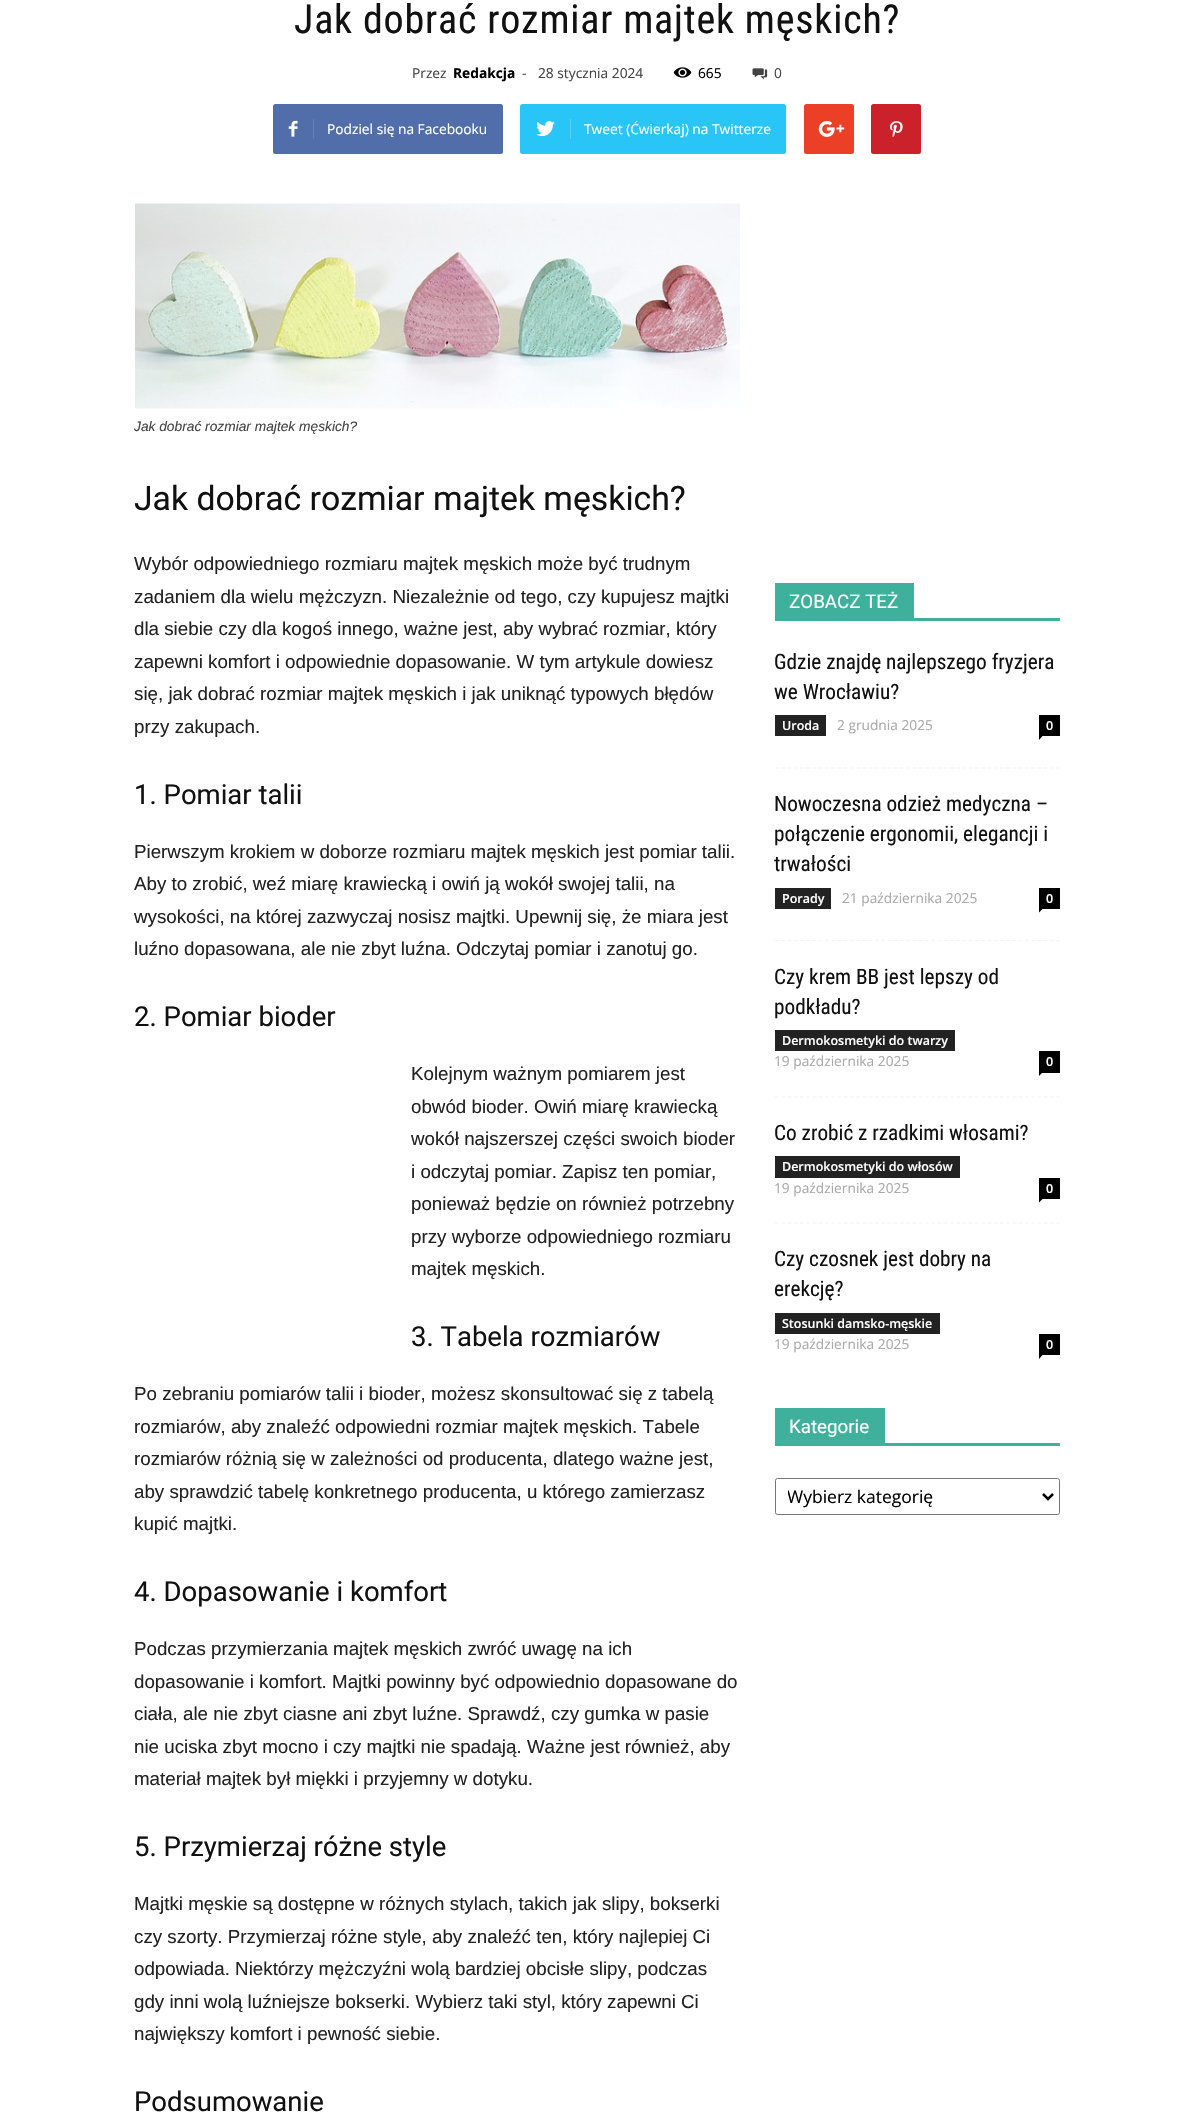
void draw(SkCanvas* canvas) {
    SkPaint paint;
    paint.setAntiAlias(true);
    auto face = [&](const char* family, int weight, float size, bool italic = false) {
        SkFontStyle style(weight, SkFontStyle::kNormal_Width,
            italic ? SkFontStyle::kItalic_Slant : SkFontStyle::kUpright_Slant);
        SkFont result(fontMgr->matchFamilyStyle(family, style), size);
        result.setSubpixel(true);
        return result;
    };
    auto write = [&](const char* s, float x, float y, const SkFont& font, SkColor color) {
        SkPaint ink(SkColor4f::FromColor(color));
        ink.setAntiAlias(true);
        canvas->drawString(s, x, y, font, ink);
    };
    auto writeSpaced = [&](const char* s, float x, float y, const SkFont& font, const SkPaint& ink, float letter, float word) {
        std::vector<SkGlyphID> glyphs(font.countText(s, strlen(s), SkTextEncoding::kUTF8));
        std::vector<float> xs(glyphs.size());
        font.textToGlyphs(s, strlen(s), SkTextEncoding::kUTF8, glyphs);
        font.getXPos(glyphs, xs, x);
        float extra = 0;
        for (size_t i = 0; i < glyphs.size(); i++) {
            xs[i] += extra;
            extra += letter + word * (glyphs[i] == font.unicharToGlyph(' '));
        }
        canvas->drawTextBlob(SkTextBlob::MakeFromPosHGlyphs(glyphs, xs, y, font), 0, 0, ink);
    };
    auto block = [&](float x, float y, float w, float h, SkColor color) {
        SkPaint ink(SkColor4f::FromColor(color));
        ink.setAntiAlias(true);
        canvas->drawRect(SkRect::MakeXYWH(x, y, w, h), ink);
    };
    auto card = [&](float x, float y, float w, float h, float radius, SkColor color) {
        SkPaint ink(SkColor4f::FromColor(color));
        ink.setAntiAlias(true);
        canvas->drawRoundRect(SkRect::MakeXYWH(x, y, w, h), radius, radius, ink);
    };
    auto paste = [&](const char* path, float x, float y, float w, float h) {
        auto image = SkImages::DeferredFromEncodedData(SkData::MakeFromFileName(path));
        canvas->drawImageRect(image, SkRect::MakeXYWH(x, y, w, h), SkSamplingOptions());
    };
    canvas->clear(SK_ColorWHITE);
    auto kFont1 = face("Roboto Condensed", 400, 40);
    paint.setColor(SkColorSetRGB(17, 17, 17));
    writeSpaced("Jak dobrać rozmiar majtek męskich?", 294, 33, kFont1, paint, 0.8f, 0);
    auto kFont2 = face("Open Sans", 400, 13.75f);
    write("Przez", 412, 78, kFont2, SkColorSetRGB(68, 68, 68));
    auto kFont3 = face("Open Sans", 700, 13.75f);
    write("Redakcja", 453, 78, kFont3, SK_ColorBLACK);
    write("-", 522, 78, kFont2, SkColorSetRGB(68, 68, 68));
    write("28 stycznia 2024", 538, 78, kFont2, SkColorSetRGB(68, 68, 68));
    paste("pic1.png", 673, 67, 19, 11);
    write("665", 698, 78, kFont2, SK_ColorBLACK);
    paste("pic2.png", 752, 68, 16, 12);
    write("0", 774, 78, kFont2, SkColorSetRGB(68, 68, 68));
    card(273, 104, 230, 50, 2.5f, SkColorSetRGB(81, 110, 171));
    paste("pic3.png", 288, 120, 10, 17);
    block(313, 119, 1, 20, SkColorSetRGB(98, 125, 179));
    write("Podziel się na Facebooku", 327, 134, kFont2, SK_ColorWHITE);
    card(520, 104, 266, 50, 2.5f, SkColorSetRGB(41, 197, 246));
    paste("pic4.png", 536, 121, 19, 16);
    block(570, 119, 1, 20, SkColorSetRGB(84, 209, 248));
    write("Tweet (Ćwierkaj) na Twitterze", 584, 134, kFont2, SK_ColorWHITE);
    card(804, 104, 50, 50, 2.5f, SkColorSetRGB(235, 64, 38));
    paste("pic5.png", 818, 121, 27, 16);
    card(871, 104, 50, 50, 2.5f, SkColorSetRGB(202, 33, 42));
    paste("pic6.png", 890, 121, 13, 17);
    paste("pic7.png", 135, 203, 605, 206);
    auto kFont4 = face("Liberation Sans", 400, 13.75f, true);
    write("Jak dobrać rozmiar majtek męskich?", 134, 431, kFont4, SkColorSetRGB(68, 68, 68));
    auto kFont5 = face("Roboto", 400, 33.75f);
    write("Jak dobrać rozmiar majtek męskich?", 134, 510, kFont5, SkColorSetRGB(17, 17, 17));
    auto kFont6 = face("Liberation Sans", 400, 18.75f);
    write("Wybór odpowiedniego rozmiaru majtek męskich może być trudnym", 134, 570, kFont6, SkColorSetRGB(34, 34, 34));
    write("zadaniem dla wielu mężczyzn. Niezależnie od tego, czy kupujesz majtki", 134, 603, kFont6, SkColorSetRGB(34, 34, 34));
    write("dla siebie czy dla kogoś innego, ważne jest, aby wybrać rozmiar, który", 134, 635, kFont6, SkColorSetRGB(34, 34, 34));
    write("zapewni komfort i odpowiednie dopasowanie. W tym artykule dowiesz", 134, 668, kFont6, SkColorSetRGB(34, 34, 34));
    write("się, jak dobrać rozmiar majtek męskich i jak uniknąć typowych błędów", 134, 700, kFont6, SkColorSetRGB(34, 34, 34));
    write("przy zakupach.", 134, 733, kFont6, SkColorSetRGB(34, 34, 34));
    auto kFont7 = face("Roboto", 400, 27.5f);
    write("1. Pomiar talii", 134, 804, kFont7, SkColorSetRGB(17, 17, 17));
    write("Pierwszym krokiem w doborze rozmiaru majtek męskich jest pomiar talii.", 134, 858, kFont6, SkColorSetRGB(34, 34, 34));
    write("Aby to zrobić, weź miarę krawiecką i owiń ją wokół swojej talii, na", 134, 890, kFont6, SkColorSetRGB(34, 34, 34));
    write("wysokości, na której zazwyczaj nosisz majtki. Upewnij się, że miara jest", 134, 923, kFont6, SkColorSetRGB(34, 34, 34));
    write("luźno dopasowana, ale nie zbyt luźna. Odczytaj pomiar i zanotuj go.", 134, 955, kFont6, SkColorSetRGB(34, 34, 34));
    write("2. Pomiar bioder", 134, 1026, kFont7, SkColorSetRGB(17, 17, 17));
    write("Kolejnym ważnym pomiarem jest", 411, 1080, kFont6, SkColorSetRGB(34, 34, 34));
    write("obwód bioder. Owiń miarę krawiecką", 411, 1113, kFont6, SkColorSetRGB(34, 34, 34));
    write("wokół najszerszej części swoich bioder", 411, 1145, kFont6, SkColorSetRGB(34, 34, 34));
    write("i odczytaj pomiar. Zapisz ten pomiar,", 411, 1178, kFont6, SkColorSetRGB(34, 34, 34));
    write("ponieważ będzie on również potrzebny", 411, 1210, kFont6, SkColorSetRGB(34, 34, 34));
    write("przy wyborze odpowiedniego rozmiaru", 411, 1243, kFont6, SkColorSetRGB(34, 34, 34));
    write("majtek męskich.", 411, 1275, kFont6, SkColorSetRGB(34, 34, 34));
    write("3. Tabela rozmiarów", 411, 1346, kFont7, SkColorSetRGB(17, 17, 17));
    write("Po zebraniu pomiarów talii i bioder, możesz skonsultować się z tabelą", 134, 1400, kFont6, SkColorSetRGB(34, 34, 34));
    write("rozmiarów, aby znaleźć odpowiedni rozmiar majtek męskich. Tabele", 134, 1433, kFont6, SkColorSetRGB(34, 34, 34));
    write("rozmiarów różnią się w zależności od producenta, dlatego ważne jest,", 134, 1465, kFont6, SkColorSetRGB(34, 34, 34));
    write("aby sprawdzić tabelę konkretnego producenta, u którego zamierzasz", 134, 1498, kFont6, SkColorSetRGB(34, 34, 34));
    write("kupić majtki.", 134, 1530, kFont6, SkColorSetRGB(34, 34, 34));
    write("4. Dopasowanie i komfort", 134, 1601, kFont7, SkColorSetRGB(17, 17, 17));
    write("Podczas przymierzania majtek męskich zwróć uwagę na ich", 134, 1655, kFont6, SkColorSetRGB(34, 34, 34));
    write("dopasowanie i komfort. Majtki powinny być odpowiednio dopasowane do", 134, 1688, kFont6, SkColorSetRGB(34, 34, 34));
    write("ciała, ale nie zbyt ciasne ani zbyt luźne. Sprawdź, czy gumka w pasie", 134, 1720, kFont6, SkColorSetRGB(34, 34, 34));
    write("nie uciska zbyt mocno i czy majtki nie spadają. Ważne jest również, aby", 134, 1753, kFont6, SkColorSetRGB(34, 34, 34));
    write("materiał majtek był miękki i przyjemny w dotyku.", 134, 1785, kFont6, SkColorSetRGB(34, 34, 34));
    write("5. Przymierzaj różne style", 134, 1856, kFont7, SkColorSetRGB(17, 17, 17));
    write("Majtki męskie są dostępne w różnych stylach, takich jak slipy, bokserki", 134, 1910, kFont6, SkColorSetRGB(34, 34, 34));
    write("czy szorty. Przymierzaj różne style, aby znaleźć ten, który najlepiej Ci", 134, 1943, kFont6, SkColorSetRGB(34, 34, 34));
    write("odpowiada. Niektórzy mężczyźni wolą bardziej obcisłe slipy, podczas", 134, 1975, kFont6, SkColorSetRGB(34, 34, 34));
    write("gdy inni wolą luźniejsze bokserki. Wybierz taki styl, który zapewni Ci", 134, 2008, kFont6, SkColorSetRGB(34, 34, 34));
    write("największy komfort i pewność siebie.", 134, 2040, kFont6, SkColorSetRGB(34, 34, 34));
    write("Podsumowanie", 134, 2111, kFont7, SkColorSetRGB(17, 17, 17));
    block(775, 618, 285, 3, SkColorSetRGB(63, 176, 156));
    block(775, 583, 139, 35, SkColorSetRGB(63, 176, 156));
    auto kFont8 = face("Roboto", 400, 18.75f);
    write("ZOBACZ TEŻ", 789, 608, kFont8, SK_ColorWHITE);
    paint.setStyle(SkPaint::kStroke_Style);
    paint.setStrokeWidth(1.2f);
    paint.setColor(SkColorSetRGB(242, 242, 242));
    paint.setPathEffect(SkDashPathEffect::Make({{3.75f, 2.5f}}, 0));
    canvas->drawPath(SkPathBuilder().moveTo(775, 768).lineTo(1060, 768).detach(), paint);
    paint.setPathEffect(nullptr);
    auto kFont9 = face("Roboto Condensed", 400, 21.25f);
    write("Gdzie znajdę najlepszego fryzjera", 774, 669, kFont9, SkColorSetRGB(17, 17, 17));
    write("we Wrocławiu?", 774, 699, kFont9, SkColorSetRGB(17, 17, 17));
    block(775, 715, 51, 21, SkColorSetRGB(34, 34, 34));
    auto kFont10 = face("Open Sans", 600, 12.5f);
    write("Uroda", 782, 730, kFont10, SK_ColorWHITE);
    write("2 grudnia 2025", 837, 730, kFont2, SkColorSetRGB(170, 170, 170));
    block(1039, 715, 21, 21, SK_ColorBLACK);
    write("0", 1046, 730, kFont10, SK_ColorWHITE);
    paint.setStyle(SkPaint::kFill_Style);
    paint.setColor(SK_ColorBLACK);
    canvas->drawPath(SkPathBuilder().moveTo(1039, 736).lineTo(1042.5f, 736).lineTo(1039, 740).close().detach(), paint);
    paint.setStyle(SkPaint::kStroke_Style);
    paint.setColor(SkColorSetRGB(242, 242, 242));
    paint.setPathEffect(SkDashPathEffect::Make({{3.75f, 2.5f}}, 0));
    canvas->drawPath(SkPathBuilder().moveTo(775, 940.5f).lineTo(1060, 940.5f).detach(), paint);
    paint.setPathEffect(nullptr);
    write("Nowoczesna odzież medyczna –", 774, 811, kFont9, SkColorSetRGB(17, 17, 17));
    write("połączenie ergonomii, elegancji i", 774, 841, kFont9, SkColorSetRGB(17, 17, 17));
    write("trwałości", 774, 871, kFont9, SkColorSetRGB(17, 17, 17));
    block(775, 888, 56, 21, SkColorSetRGB(34, 34, 34));
    write("Porady", 782, 903, kFont10, SK_ColorWHITE);
    write("21 października 2025", 842, 903, kFont2, SkColorSetRGB(170, 170, 170));
    block(1039, 888, 21, 21, SK_ColorBLACK);
    write("0", 1046, 903, kFont10, SK_ColorWHITE);
    paint.setStyle(SkPaint::kFill_Style);
    paint.setColor(SK_ColorBLACK);
    canvas->drawPath(SkPathBuilder().moveTo(1039, 909).lineTo(1042.5f, 909).lineTo(1039, 912.5f).close().detach(), paint);
    paint.setStyle(SkPaint::kStroke_Style);
    paint.setColor(SkColorSetRGB(242, 242, 242));
    paint.setPathEffect(SkDashPathEffect::Make({{3.75f, 2.5f}}, 0));
    canvas->drawPath(SkPathBuilder().moveTo(775, 1097).lineTo(1060, 1097).detach(), paint);
    paint.setPathEffect(nullptr);
    write("Czy krem BB jest lepszy od", 774, 984, kFont9, SkColorSetRGB(17, 17, 17));
    write("podkładu?", 774, 1014, kFont9, SkColorSetRGB(17, 17, 17));
    block(775, 1030, 180, 21, SkColorSetRGB(34, 34, 34));
    write("Dermokosmetyki do twarzy", 782, 1045, kFont10, SK_ColorWHITE);
    write("19 października 2025", 774, 1066, kFont2, SkColorSetRGB(170, 170, 170));
    block(1039, 1051, 21, 22, SK_ColorBLACK);
    write("0", 1046, 1066, kFont10, SK_ColorWHITE);
    paint.setStyle(SkPaint::kFill_Style);
    paint.setColor(SK_ColorBLACK);
    canvas->drawPath(SkPathBuilder().moveTo(1039, 1072.5f).lineTo(1042.5f, 1072.5f).lineTo(1039, 1076).close().detach(), paint);
    paint.setStyle(SkPaint::kStroke_Style);
    paint.setColor(SkColorSetRGB(242, 242, 242));
    paint.setPathEffect(SkDashPathEffect::Make({{3.75f, 2.5f}}, 0));
    canvas->drawPath(SkPathBuilder().moveTo(775, 1223).lineTo(1060, 1223).detach(), paint);
    paint.setPathEffect(nullptr);
    write("Co zrobić z rzadkimi włosami?", 774, 1140, kFont9, SkColorSetRGB(17, 17, 17));
    block(775, 1156, 185, 22, SkColorSetRGB(34, 34, 34));
    write("Dermokosmetyki do włosów", 782, 1171, kFont10, SK_ColorWHITE);
    write("19 października 2025", 774, 1193, kFont2, SkColorSetRGB(170, 170, 170));
    block(1039, 1178, 21, 21, SK_ColorBLACK);
    write("0", 1046, 1193, kFont10, SK_ColorWHITE);
    paint.setStyle(SkPaint::kFill_Style);
    paint.setColor(SK_ColorBLACK);
    canvas->drawPath(SkPathBuilder().moveTo(1039, 1199).lineTo(1042.5f, 1199).lineTo(1039, 1202.5f).close().detach(), paint);
    write("Czy czosnek jest dobry na", 774, 1266, kFont9, SkColorSetRGB(17, 17, 17));
    write("erekcję?", 774, 1296, kFont9, SkColorSetRGB(17, 17, 17));
    block(775, 1313, 165, 21, SkColorSetRGB(34, 34, 34));
    write("Stosunki damsko-męskie", 782, 1328, kFont10, SK_ColorWHITE);
    write("19 października 2025", 774, 1349, kFont2, SkColorSetRGB(170, 170, 170));
    block(1039, 1334, 21, 21, SK_ColorBLACK);
    write("0", 1046, 1349, kFont10, SK_ColorWHITE);
    canvas->drawPath(SkPathBuilder().moveTo(1039, 1355).lineTo(1042.5f, 1355).lineTo(1039, 1359).close().detach(), paint);
    block(775, 1443, 285, 3, SkColorSetRGB(63, 176, 156));
    block(775, 1408, 110, 35, SkColorSetRGB(63, 176, 156));
    write("Kategorie", 789, 1433, kFont8, SK_ColorWHITE);
    paint.setStyle(SkPaint::kStroke_Style);
    paint.setStrokeWidth(1);
    paint.setColor(SkColorSetRGB(118, 118, 118));
    canvas->drawRoundRect(SkRect::MakeXYWH(775.5f, 1478.5f, 284, 36), 2, 2, paint);
    paint.setStrokeWidth(2.5f);
    paint.setColor(SK_ColorBLACK);
    canvas->drawPath(SkPathBuilder().moveTo(1043, 1494).lineTo(1048, 1499).lineTo(1053, 1494).detach(), paint);
    canvas->save();
    canvas->clipRect(SkRect::MakeXYWH(788, 1484, 245, 26));
    auto kFont11 = face("Open Sans", 400, 17.5f);
    write("Wybierz kategorię", 787, 1503, kFont11, SK_ColorBLACK);
    canvas->restore();
}
